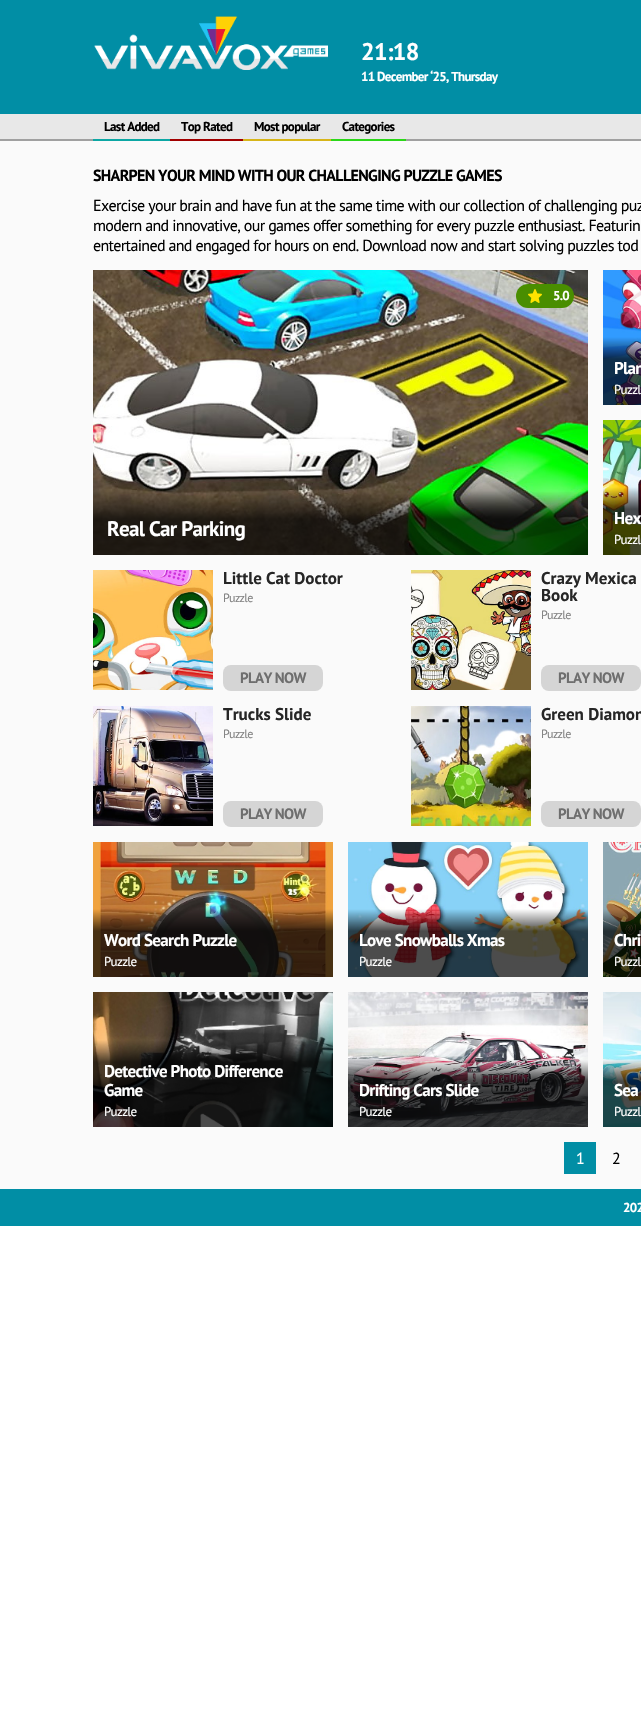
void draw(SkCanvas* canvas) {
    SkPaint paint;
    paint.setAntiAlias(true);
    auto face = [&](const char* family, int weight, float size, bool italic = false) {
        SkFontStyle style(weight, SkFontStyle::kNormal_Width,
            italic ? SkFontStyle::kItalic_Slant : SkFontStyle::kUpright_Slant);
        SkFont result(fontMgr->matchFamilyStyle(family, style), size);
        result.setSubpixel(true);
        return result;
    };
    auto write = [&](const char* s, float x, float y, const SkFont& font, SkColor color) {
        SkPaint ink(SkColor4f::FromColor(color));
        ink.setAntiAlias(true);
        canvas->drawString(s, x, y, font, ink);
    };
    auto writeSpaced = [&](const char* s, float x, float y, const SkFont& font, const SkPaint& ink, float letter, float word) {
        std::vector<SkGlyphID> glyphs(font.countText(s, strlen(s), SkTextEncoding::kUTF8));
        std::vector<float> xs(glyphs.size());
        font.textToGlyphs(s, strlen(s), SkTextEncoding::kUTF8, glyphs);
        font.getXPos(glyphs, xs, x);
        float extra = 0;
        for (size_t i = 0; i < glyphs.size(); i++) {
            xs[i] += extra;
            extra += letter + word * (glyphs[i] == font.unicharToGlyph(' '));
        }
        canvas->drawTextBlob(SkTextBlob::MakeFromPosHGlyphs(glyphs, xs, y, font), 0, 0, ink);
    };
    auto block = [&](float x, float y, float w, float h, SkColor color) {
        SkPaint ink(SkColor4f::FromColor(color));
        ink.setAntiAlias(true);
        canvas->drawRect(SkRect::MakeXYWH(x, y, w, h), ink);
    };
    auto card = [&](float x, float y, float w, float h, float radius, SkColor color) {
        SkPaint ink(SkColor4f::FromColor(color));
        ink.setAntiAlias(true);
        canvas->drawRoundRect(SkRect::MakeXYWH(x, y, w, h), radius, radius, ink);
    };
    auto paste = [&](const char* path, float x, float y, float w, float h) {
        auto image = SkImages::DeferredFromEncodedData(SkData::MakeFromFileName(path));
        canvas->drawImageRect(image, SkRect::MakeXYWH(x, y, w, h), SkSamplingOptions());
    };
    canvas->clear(SK_ColorWHITE);
    block(0, 0, 641, 114, SkColorSetRGB(1, 142, 165));
    paste("pic1.png", 94, 16, 234, 54);
    auto kFont1 = face("PT Sans", 700, 24);
    paint.setColor(SK_ColorWHITE);
    writeSpaced("21:18", 361, 60, kFont1, paint, -0.65f, 0);
    auto kFont2 = face("PT Sans", 700, 13);
    writeSpaced("11 December ‘25, Thursday", 361, 81, kFont2, paint, -0.65f, 0);
    block(0, 114, 641, 25, SkColorSetRGB(232, 232, 232));
    block(0, 139, 641, 2, SkColorSetRGB(160, 160, 160));
    block(93, 139, 77, 2, SkColorSetRGB(12, 167, 164));
    paint.setColor(SK_ColorBLACK);
    writeSpaced("Last Added", 104, 131, kFont2, paint, -0.65f, 0);
    block(170, 139, 73, 2, SkColorSetRGB(162, 0, 0));
    writeSpaced("Top Rated", 181, 131, kFont2, paint, -0.65f, 0);
    block(243, 139, 88, 2, SkColorSetRGB(215, 181, 25));
    writeSpaced("Most popular", 254, 131, kFont2, paint, -0.65f, 0);
    block(331, 139, 75, 2, SkColorSetRGB(43, 215, 25));
    writeSpaced("Categories", 342, 131, kFont2, paint, -0.65f, 0);
    block(0, 141, 641, 1048, SkColorSetRGB(250, 250, 250));
    auto kFont3 = face("PT Sans", 700, 16);
    writeSpaced("SHARPEN YOUR MIND WITH OUR CHALLENGING PUZZLE GAMES", 93, 181, kFont3, paint, -0.65f, 0);
    auto kFont4 = face("PT Sans", 400, 16);
    writeSpaced("Exercise your brain and have fun at the same time with our collection of challenging puz", 93, 211, kFont4, paint, -0.65f, 0);
    writeSpaced("modern and innovative, our games offer something for every puzzle enthusiast. Featurin", 93, 231, kFont4, paint, -0.65f, 0);
    writeSpaced("entertained and engaged for hours on end. Download now and start solving puzzles tod", 93, 251, kFont4, paint, -0.65f, 0);
    paste("pic2.png", 93, 270, 495, 285);
    card(516, 284, 58, 24, 12, SkColorSetRGB(73, 142, 0));
    paste("pic3.png", 528, 289, 14, 14);
    paint.setColor(SK_ColorWHITE);
    writeSpaced("5.0", 553, 300, kFont2, paint, -0.65f, 0);
    block(93, 519, 495, 36, SkColorSetARGB(179, 0, 0, 0));
    auto kFont5 = face("PT Sans", 700, 21);
    writeSpaced("Real Car Parking", 107, 536, kFont5, paint, -0.65f, 0);
    paste("pic4.png", 603, 270, 38, 135);
    block(603, 359, 38, 46, SkColorSetARGB(179, 0, 0, 0));
    auto kFont6 = face("PT Sans", 700, 17);
    writeSpaced("Plan", 614, 374, kFont6, paint, -0.65f, 0);
    auto kFont7 = face("PT Sans", 400, 13);
    writeSpaced("Puzzl", 614, 394, kFont7, paint, -0.65f, 0);
    paste("pic5.png", 603, 420, 38, 135);
    block(603, 509, 38, 46, SkColorSetARGB(179, 0, 0, 0));
    writeSpaced("Hex", 614, 524, kFont6, paint, -0.65f, 0);
    writeSpaced("Puzzl", 614, 544, kFont7, paint, -0.65f, 0);
    paste("pic6.png", 93, 570, 120, 120);
    write("Little Cat Doctor", 223, 584, kFont6, SkColorSetRGB(38, 38, 38));
    auto kFont8 = face("PT Sans", 400, 12);
    paint.setColor(SkColorSetRGB(131, 131, 131));
    writeSpaced("Puzzle", 223, 602, kFont8, paint, -0.65f, 0);
    card(223, 665, 100, 26, 8, SkColorSetRGB(213, 213, 213));
    auto kFont9 = face("PT Sans", 700, 15);
    paint.setColor(SkColorSetRGB(110, 110, 110));
    writeSpaced("PLAY NOW", 240, 683, kFont9, paint, -0.65f, 0);
    paste("pic7.png", 411, 570, 120, 120);
    write("Crazy Mexica", 541, 584, kFont6, SkColorSetRGB(38, 38, 38));
    write("Book", 541, 601, kFont6, SkColorSetRGB(38, 38, 38));
    paint.setColor(SkColorSetRGB(131, 131, 131));
    writeSpaced("Puzzle", 541, 619, kFont8, paint, -0.65f, 0);
    card(541, 665, 100, 26, 8, SkColorSetRGB(213, 213, 213));
    paint.setColor(SkColorSetRGB(110, 110, 110));
    writeSpaced("PLAY NOW", 558, 683, kFont9, paint, -0.65f, 0);
    paste("pic8.png", 93, 706, 120, 120);
    canvas->save();
    canvas->clipRect(SkRect::MakeXYWH(223, 706, 173, 20));
    write("Trucks Slide", 223, 720, kFont6, SkColorSetRGB(38, 38, 38));
    canvas->restore();
    paint.setColor(SkColorSetRGB(131, 131, 131));
    writeSpaced("Puzzle", 223, 738, kFont8, paint, -0.65f, 0);
    card(223, 801, 100, 26, 8, SkColorSetRGB(213, 213, 213));
    paint.setColor(SkColorSetRGB(110, 110, 110));
    writeSpaced("PLAY NOW", 240, 819, kFont9, paint, -0.65f, 0);
    paste("pic9.png", 411, 706, 120, 120);
    write("Green Diamon", 541, 720, kFont6, SkColorSetRGB(38, 38, 38));
    paint.setColor(SkColorSetRGB(131, 131, 131));
    writeSpaced("Puzzle", 541, 738, kFont8, paint, -0.65f, 0);
    card(541, 801, 100, 26, 8, SkColorSetRGB(213, 213, 213));
    paint.setColor(SkColorSetRGB(110, 110, 110));
    writeSpaced("PLAY NOW", 558, 819, kFont9, paint, -0.65f, 0);
    paste("pic10.png", 93, 842, 240, 135);
    block(93, 931, 240, 46, SkColorSetARGB(179, 0, 0, 0));
    paint.setColor(SK_ColorWHITE);
    writeSpaced("Word Search Puzzle", 104, 946, kFont6, paint, -0.65f, 0);
    writeSpaced("Puzzle", 104, 966, kFont7, paint, -0.65f, 0);
    paste("pic11.png", 348, 842, 240, 135);
    block(348, 931, 240, 46, SkColorSetARGB(179, 0, 0, 0));
    writeSpaced("Love Snowballs Xmas", 359, 946, kFont6, paint, -0.65f, 0);
    writeSpaced("Puzzle", 359, 966, kFont7, paint, -0.65f, 0);
    paste("pic12.png", 603, 842, 38, 135);
    block(603, 931, 38, 46, SkColorSetARGB(179, 0, 0, 0));
    writeSpaced("Chri", 614, 946, kFont6, paint, -0.65f, 0);
    writeSpaced("Puzzl", 614, 966, kFont7, paint, -0.65f, 0);
    paste("pic13.png", 93, 992, 240, 135);
    block(93, 1062, 240, 65, SkColorSetARGB(179, 0, 0, 0));
    writeSpaced("Detective Photo Difference", 104, 1077, kFont6, paint, -0.65f, 0);
    writeSpaced("Game", 104, 1096, kFont6, paint, -0.65f, 0);
    writeSpaced("Puzzle", 104, 1116, kFont7, paint, -0.65f, 0);
    paste("pic14.png", 348, 992, 240, 135);
    block(348, 1081, 240, 46, SkColorSetARGB(179, 0, 0, 0));
    writeSpaced("Drifting Cars Slide", 359, 1096, kFont6, paint, -0.65f, 0);
    writeSpaced("Puzzle", 359, 1116, kFont7, paint, -0.65f, 0);
    paste("pic15.png", 603, 992, 38, 135);
    block(603, 1081, 38, 46, SkColorSetARGB(179, 0, 0, 0));
    writeSpaced("Sea", 614, 1096, kFont6, paint, -0.65f, 0);
    writeSpaced("Puzzl", 614, 1116, kFont7, paint, -0.65f, 0);
    block(564, 1142, 32, 32, SkColorSetRGB(1, 142, 165));
    writeSpaced("1", 576, 1164, kFont4, paint, -0.65f, 0);
    paint.setColor(SK_ColorBLACK);
    writeSpaced("2", 612, 1164, kFont4, paint, -0.65f, 0);
    block(0, 1189, 641, 37, SkColorSetRGB(1, 142, 165));
    paint.setColor(SK_ColorWHITE);
    writeSpaced("202", 623, 1212, kFont2, paint, -0.65f, 0);
}
